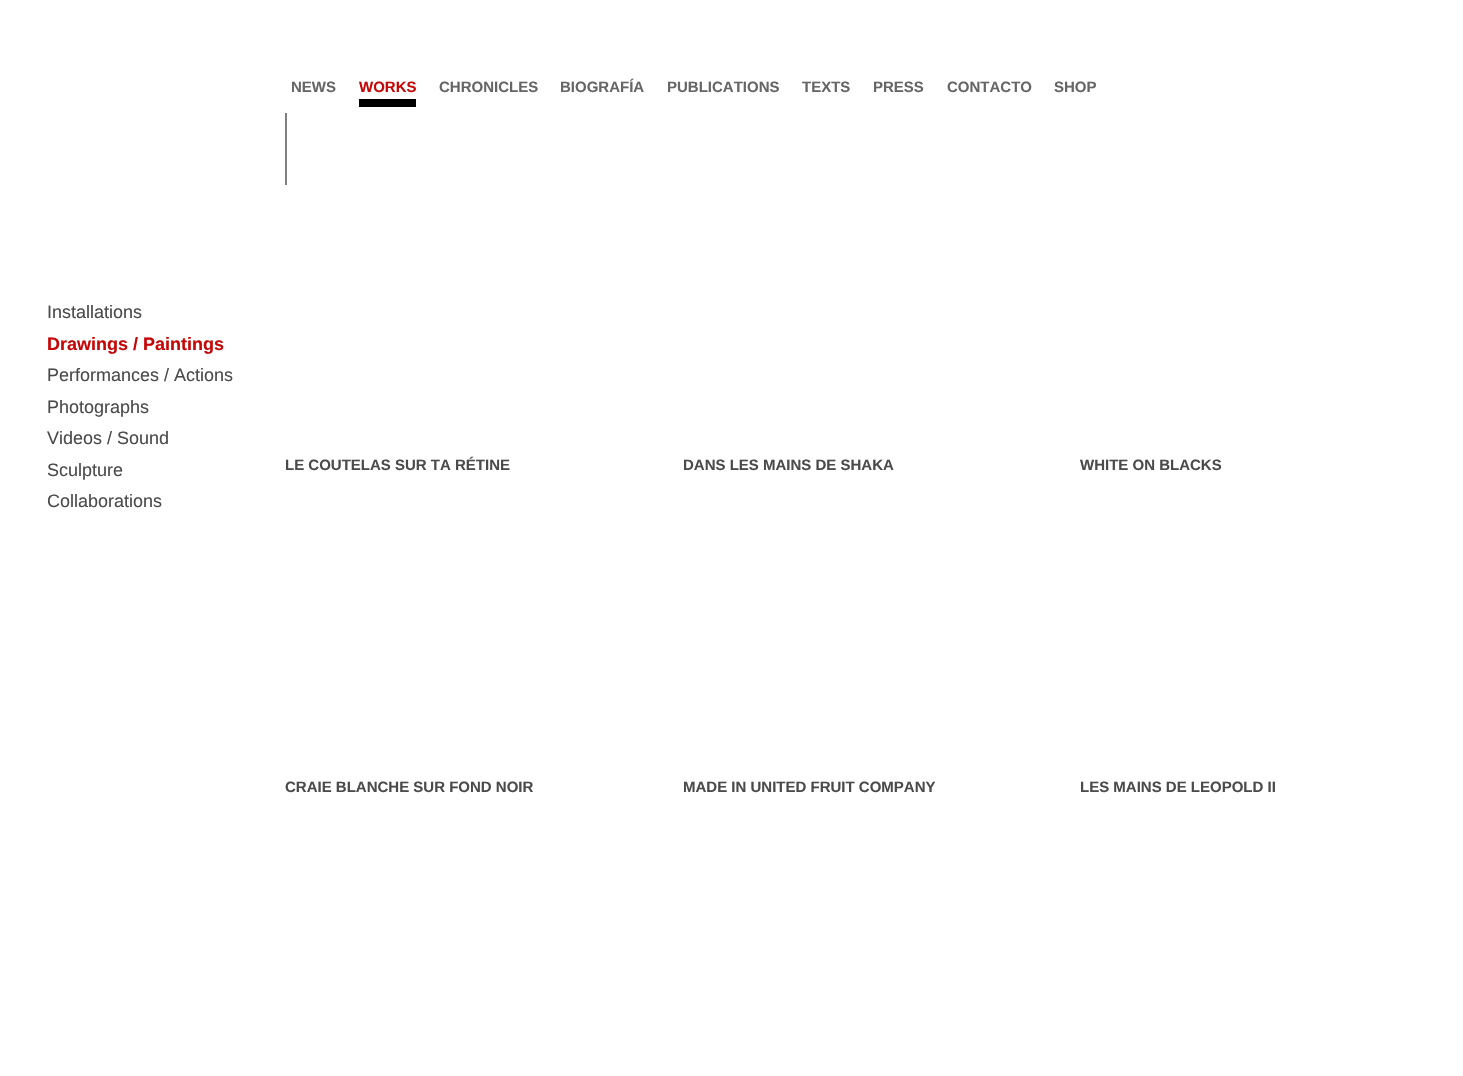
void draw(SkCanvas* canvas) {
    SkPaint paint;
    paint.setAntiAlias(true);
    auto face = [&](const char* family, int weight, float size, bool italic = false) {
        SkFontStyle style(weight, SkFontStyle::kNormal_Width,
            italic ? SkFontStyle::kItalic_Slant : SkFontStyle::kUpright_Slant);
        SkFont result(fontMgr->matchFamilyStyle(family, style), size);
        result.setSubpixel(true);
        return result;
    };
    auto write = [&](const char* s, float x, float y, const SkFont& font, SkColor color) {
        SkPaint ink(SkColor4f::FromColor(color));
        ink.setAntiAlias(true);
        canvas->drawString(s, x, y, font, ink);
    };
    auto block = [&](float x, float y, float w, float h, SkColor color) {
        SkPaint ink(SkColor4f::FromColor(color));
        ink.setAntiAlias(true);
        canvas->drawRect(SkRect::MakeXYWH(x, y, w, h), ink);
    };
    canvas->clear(SK_ColorWHITE);
    auto kFont1 = face("Liberation Sans", 700, 15);
    write("NEWS", 291, 92, kFont1, SkColorSetRGB(102, 102, 102));
    write("WORKS", 359, 92, kFont1, SkColorSetRGB(198, 7, 7));
    block(359, 99, 57, 8, SK_ColorBLACK);
    write("CHRONICLES", 439, 92, kFont1, SkColorSetRGB(102, 102, 102));
    write("BIOGRAFÍA", 560, 92, kFont1, SkColorSetRGB(102, 102, 102));
    write("PUBLICATIONS", 667, 92, kFont1, SkColorSetRGB(102, 102, 102));
    write("TEXTS", 802, 92, kFont1, SkColorSetRGB(102, 102, 102));
    write("PRESS", 873, 92, kFont1, SkColorSetRGB(102, 102, 102));
    write("CONTACTO", 947, 92, kFont1, SkColorSetRGB(102, 102, 102));
    write("SHOP", 1054, 92, kFont1, SkColorSetRGB(102, 102, 102));
    block(285, 113, 2, 72, SkColorSetRGB(127, 127, 127));
    auto kFont2 = face("Liberation Sans", 400, 18);
    write("Installations", 47, 318, kFont2, SkColorSetRGB(75, 75, 75));
    auto kFont3 = face("Liberation Sans", 700, 18);
    write("Drawings / Paintings", 47, 350, kFont3, SkColorSetRGB(198, 7, 7));
    write("Performances / Actions", 47, 381, kFont2, SkColorSetRGB(75, 75, 75));
    write("Photographs", 47, 413, kFont2, SkColorSetRGB(75, 75, 75));
    write("Videos / Sound", 47, 444, kFont2, SkColorSetRGB(75, 75, 75));
    write("Sculpture", 47, 476, kFont2, SkColorSetRGB(75, 75, 75));
    write("Collaborations", 47, 507, kFont2, SkColorSetRGB(75, 75, 75));
    write("LE COUTELAS SUR TA RÉTINE", 285, 470, kFont1, SkColorSetRGB(75, 75, 75));
    write("DANS LES MAINS DE SHAKA", 683, 470, kFont1, SkColorSetRGB(75, 75, 75));
    write("WHITE ON BLACKS", 1080, 470, kFont1, SkColorSetRGB(75, 75, 75));
    write("CRAIE BLANCHE SUR FOND NOIR", 285, 792, kFont1, SkColorSetRGB(75, 75, 75));
    write("MADE IN UNITED FRUIT COMPANY", 683, 792, kFont1, SkColorSetRGB(75, 75, 75));
    write("LES MAINS DE LEOPOLD II", 1080, 792, kFont1, SkColorSetRGB(75, 75, 75));
}
